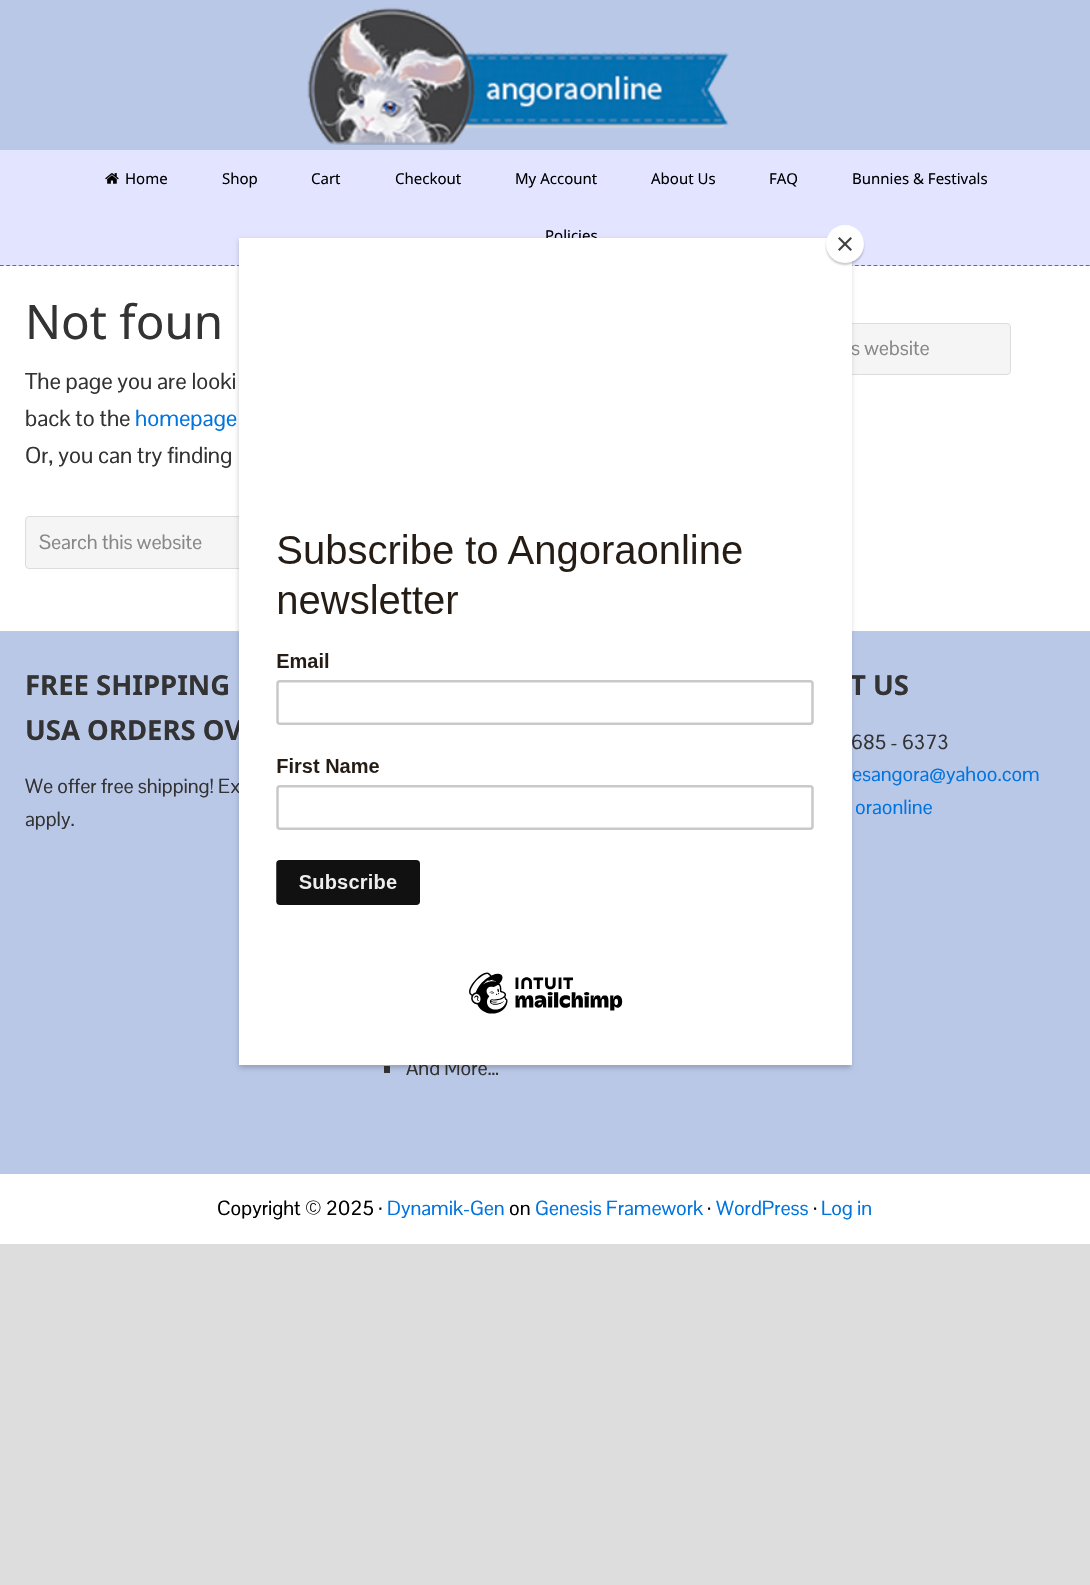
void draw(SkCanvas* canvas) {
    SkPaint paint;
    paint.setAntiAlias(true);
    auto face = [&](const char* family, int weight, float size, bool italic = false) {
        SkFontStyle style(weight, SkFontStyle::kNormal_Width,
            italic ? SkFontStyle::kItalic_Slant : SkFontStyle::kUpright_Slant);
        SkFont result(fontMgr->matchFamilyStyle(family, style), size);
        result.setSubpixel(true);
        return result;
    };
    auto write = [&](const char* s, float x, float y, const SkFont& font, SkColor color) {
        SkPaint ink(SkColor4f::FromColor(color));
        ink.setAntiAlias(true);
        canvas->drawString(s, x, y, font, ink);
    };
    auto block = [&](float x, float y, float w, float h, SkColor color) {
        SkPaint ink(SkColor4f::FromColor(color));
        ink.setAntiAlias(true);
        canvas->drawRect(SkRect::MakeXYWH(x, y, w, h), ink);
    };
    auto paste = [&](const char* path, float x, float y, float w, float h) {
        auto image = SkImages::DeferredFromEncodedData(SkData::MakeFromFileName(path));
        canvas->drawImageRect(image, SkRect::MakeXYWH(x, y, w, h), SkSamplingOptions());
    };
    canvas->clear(SkColorSetRGB(221, 221, 221));
    block(0, 266, 1090, 978, SK_ColorWHITE);
    block(0, 0, 1090, 150, SkColorSetRGB(186, 200, 232));
    paste("pic1.png", 307, 7, 422, 138);
    block(0, 150, 1090, 116, SkColorSetRGB(227, 228, 255));
    canvas->save();
    canvas->clipRect(SkRect::MakeXYWH(0, 0, 1090, 266));
    paint.setStyle(SkPaint::kStroke_Style);
    paint.setStrokeWidth(1.2f);
    paint.setColor(SkColorSetRGB(9, 141, 201));
    paint.setPathEffect(SkDashPathEffect::Make({{3.75f, 2.49f}}, 0));
    canvas->drawPath(SkPathBuilder().moveTo(0, 265.5f).lineTo(1090, 265.5f).detach(), paint);
    paint.setPathEffect(nullptr);
    canvas->restore();
    paste("pic2.png", 105, 173, 14, 11);
    auto kFont1 = face("Noto Sans", 400, 15);
    write("Home", 125, 184, kFont1, SK_ColorBLACK);
    write("Shop", 222, 184, kFont1, SK_ColorBLACK);
    write("Cart", 311, 184, kFont1, SK_ColorBLACK);
    write("Checkout", 395, 184, kFont1, SK_ColorBLACK);
    write("My Account", 515, 184, kFont1, SK_ColorBLACK);
    write("About Us", 651, 184, kFont1, SK_ColorBLACK);
    write("FAQ", 769, 184, kFont1, SK_ColorBLACK);
    write("Bunnies & Festivals", 852, 184, kFont1, SK_ColorBLACK);
    write("Policies", 545, 241, kFont1, SK_ColorBLACK);
    auto kFont2 = face("Noto Sans", 400, 47.5f);
    write("Not foun", 25, 339, kFont2, SkColorSetRGB(51, 51, 51));
    auto kFont3 = face("Pontano Sans", 400, 22.5f);
    write("The page you are looki", 25, 389, kFont3, SkColorSetRGB(51, 51, 51));
    write("back to the", 25, 426, kFont3, SkColorSetRGB(51, 51, 51));
    write("homepage", 135, 426, kFont3, SkColorSetRGB(1, 116, 223));
    write("Or, you can try finding", 25, 463, kFont3, SkColorSetRGB(51, 51, 51));
    paint.setStyle(SkPaint::kFill_Style);
    paint.setColor(SkColorSetRGB(245, 245, 245));
    canvas->drawRoundRect(SkRect::MakeXYWH(25.5f, 516.5f, 258, 52), 3.5f, 3.5f, paint);
    paint.setStyle(SkPaint::kStroke_Style);
    paint.setStrokeWidth(1);
    paint.setColor(SkColorSetRGB(221, 221, 221));
    canvas->drawRoundRect(SkRect::MakeXYWH(25.5f, 516.5f, 258, 52), 3.5f, 3.5f, paint);
    auto kFont4 = face("Pontano Sans", 400, 20);
    write("Search this website", 39, 549, kFont4, SkColorSetRGB(136, 136, 136));
    paint.setStyle(SkPaint::kFill_Style);
    paint.setColor(SkColorSetRGB(245, 245, 245));
    canvas->drawRoundRect(SkRect::MakeXYWH(753.5f, 323.5f, 257, 51), 3.5f, 3.5f, paint);
    paint.setStyle(SkPaint::kStroke_Style);
    paint.setColor(SkColorSetRGB(221, 221, 221));
    canvas->drawRoundRect(SkRect::MakeXYWH(753.5f, 323.5f, 257, 51), 3.5f, 3.5f, paint);
    write("s website", 851, 355, kFont4, SkColorSetRGB(136, 136, 136));
    block(0, 631, 1090, 543, SkColorSetRGB(186, 200, 232));
    auto kFont5 = face("Noto Sans", 700, 27.5f);
    write("FREE SHIPPING", 25, 695, kFont5, SkColorSetRGB(51, 51, 51));
    write("USA ORDERS OV", 25, 740, kFont5, SkColorSetRGB(51, 51, 51));
    write("We offer free shipping! Ex", 25, 793, kFont4, SkColorSetRGB(51, 51, 51));
    write("apply.", 25, 826, kFont4, SkColorSetRGB(51, 51, 51));
    write("T US", 850, 695, kFont5, SkColorSetRGB(51, 51, 51));
    write("685 - 6373", 851, 749, kFont4, SkColorSetRGB(51, 51, 51));
    write("esangora@yahoo.com", 852, 781, kFont4, SkColorSetRGB(1, 116, 223));
    write("oraonline", 855, 814, kFont4, SkColorSetRGB(1, 116, 223));
    block(384, 1066, 6, 7, SkColorSetRGB(51, 51, 51));
    write("And More…", 406, 1075, kFont4, SkColorSetRGB(51, 51, 51));
    write("Copyright © 2025 ·", 217, 1215, kFont4, SK_ColorBLACK);
    write("Dynamik-Gen", 387, 1215, kFont4, SkColorSetRGB(1, 116, 223));
    write("on", 509, 1215, kFont4, SK_ColorBLACK);
    write("Genesis Framework", 535, 1215, kFont4, SkColorSetRGB(1, 116, 223));
    write("·", 707, 1215, kFont4, SK_ColorBLACK);
    write("WordPress", 716, 1215, kFont4, SkColorSetRGB(1, 116, 223));
    write("·", 813, 1215, kFont4, SK_ColorBLACK);
    write("Log in", 821, 1215, kFont4, SkColorSetRGB(1, 116, 223));
    paint.setStyle(SkPaint::kFill_Style);
    paint.setColor(SkColorSetARGB(51, 0, 0, 0));
    paint.setMaskFilter(SkMaskFilter::MakeBlur(kNormal_SkBlurStyle, 2.5f));
    canvas->drawRect(SkRect::MakeXYWH(239, 240, 612, 828), paint);
    paint.setMaskFilter(nullptr);
    paste("pic3.png", 239, 238, 613, 827);
    paint.setMaskFilter(SkMaskFilter::MakeBlur(kNormal_SkBlurStyle, 1));
    canvas->drawRoundRect(SkRect::MakeXYWH(826, 228, 38, 37), 18.5f, 18.5f, paint);
    paint.setMaskFilter(nullptr);
    paint.setColor(SK_ColorWHITE);
    canvas->drawCircle(845, 244, 19, paint);
    paint.setColor(SkColorSetRGB(65, 65, 65));
    canvas->drawPath(SkPathBuilder().moveTo(850.5f, 237).lineTo(852, 238.5f).lineTo(839.5f, 251).lineTo(838, 249.5f).close().detach(), paint);
    canvas->drawPath(SkPathBuilder().moveTo(838, 238.5f).lineTo(839.5f, 237).lineTo(852, 249.5f).lineTo(850.5f, 251).close().detach(), paint);
}
